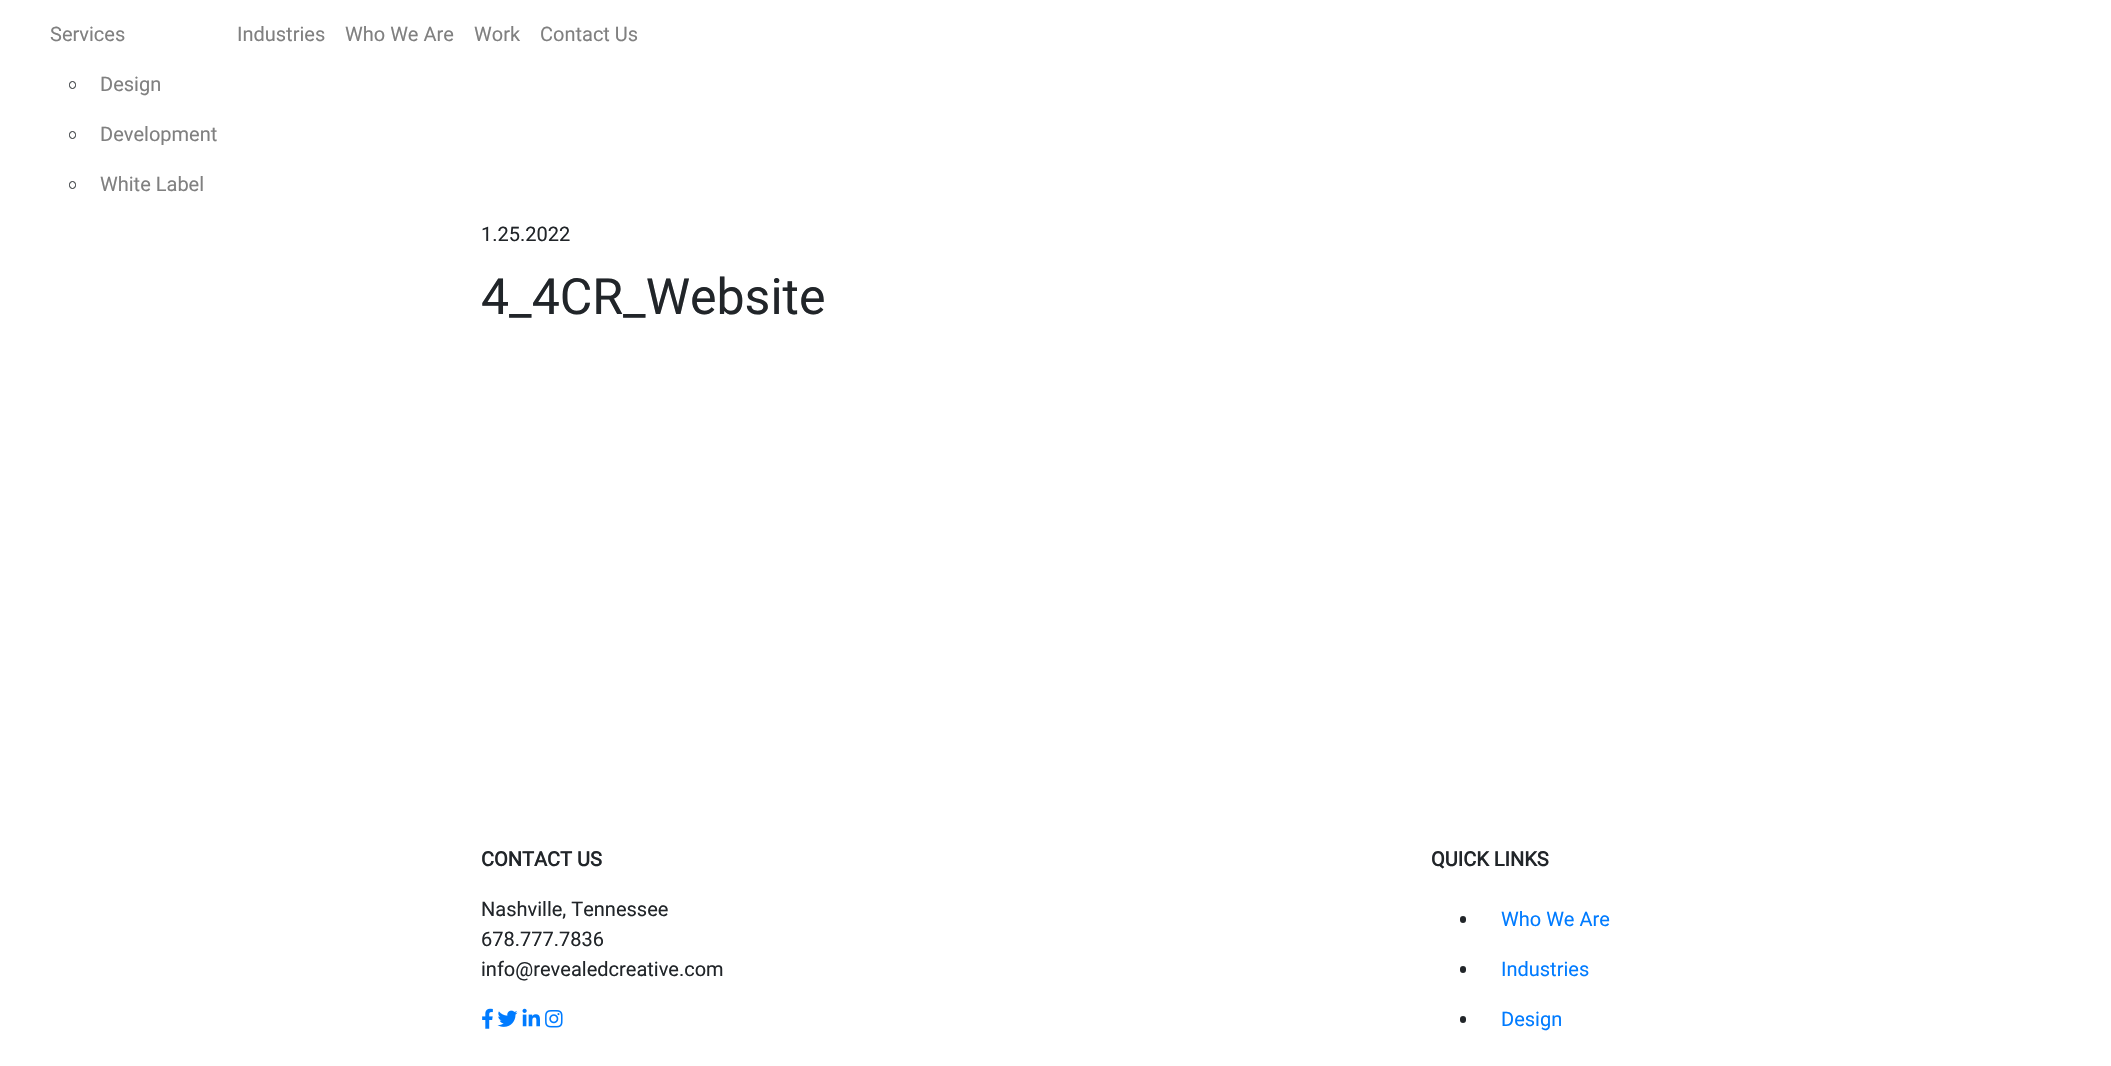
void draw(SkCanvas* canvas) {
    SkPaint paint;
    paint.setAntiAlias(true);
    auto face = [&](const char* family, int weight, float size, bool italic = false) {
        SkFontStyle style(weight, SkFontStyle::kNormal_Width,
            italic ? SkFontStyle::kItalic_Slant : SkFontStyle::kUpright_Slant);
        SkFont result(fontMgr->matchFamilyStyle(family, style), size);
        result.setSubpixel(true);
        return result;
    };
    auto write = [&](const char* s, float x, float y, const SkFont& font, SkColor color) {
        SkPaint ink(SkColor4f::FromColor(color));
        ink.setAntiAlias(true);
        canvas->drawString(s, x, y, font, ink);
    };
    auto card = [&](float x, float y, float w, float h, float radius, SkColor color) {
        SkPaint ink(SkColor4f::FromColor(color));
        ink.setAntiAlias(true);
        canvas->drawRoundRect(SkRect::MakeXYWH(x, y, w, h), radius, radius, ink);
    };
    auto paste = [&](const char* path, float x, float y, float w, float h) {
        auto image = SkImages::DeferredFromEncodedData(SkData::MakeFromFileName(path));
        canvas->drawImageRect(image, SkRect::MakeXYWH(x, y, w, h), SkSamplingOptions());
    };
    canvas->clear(SK_ColorWHITE);
    auto kFont1 = face("Roboto", 400, 20);
    write("Services", 50, 41, kFont1, SkColorSetRGB(128, 128, 128));
    paint.setStyle(SkPaint::kStroke_Style);
    paint.setStrokeWidth(1);
    paint.setColor(SkColorSetRGB(33, 37, 41));
    canvas->drawRoundRect(SkRect::MakeXYWH(69.5f, 81.5f, 6, 7), 3, 3, paint);
    write("Design", 100, 91, kFont1, SkColorSetRGB(128, 128, 128));
    canvas->drawRoundRect(SkRect::MakeXYWH(69.5f, 131.5f, 6, 7), 3, 3, paint);
    write("Development", 100, 141, kFont1, SkColorSetRGB(128, 128, 128));
    canvas->drawRoundRect(SkRect::MakeXYWH(69.5f, 181.5f, 6, 7), 3, 3, paint);
    write("White Label", 100, 191, kFont1, SkColorSetRGB(128, 128, 128));
    write("Industries", 237, 41, kFont1, SkColorSetRGB(128, 128, 128));
    write("Who We Are", 345, 41, kFont1, SkColorSetRGB(128, 128, 128));
    write("Work", 474, 41, kFont1, SkColorSetRGB(128, 128, 128));
    write("Contact Us", 540, 41, kFont1, SkColorSetRGB(128, 128, 128));
    write("1.25.2022", 481, 241, kFont1, SkColorSetRGB(33, 37, 41));
    auto kFont2 = face("Roboto", 400, 50);
    write("4_4CR_Website", 481, 314, kFont2, SkColorSetRGB(33, 37, 41));
    auto kFont3 = face("Roboto", 700, 20);
    write("CONTACT US", 481, 866, kFont3, SkColorSetRGB(33, 37, 41));
    write("Nashville, Tennessee", 481, 916, kFont1, SkColorSetRGB(33, 37, 41));
    write("678.777.7836", 481, 946, kFont1, SkColorSetRGB(33, 37, 41));
    write("info@revealedcreative.com", 481, 976, kFont1, SkColorSetRGB(33, 37, 41));
    paste("pic1.png", 482, 1008, 11, 21);
    paste("pic2.png", 497, 1010, 21, 17);
    paste("pic3.png", 522, 1008, 18, 19);
    paste("pic4.png", 545, 1010, 18, 18);
    write("QUICK LINKS", 1431, 866, kFont3, SkColorSetRGB(33, 37, 41));
    card(1460, 916, 6, 7, 3, SkColorSetRGB(33, 37, 41));
    write("Who We Are", 1501, 926, kFont1, SkColorSetRGB(0, 123, 255));
    card(1460, 966, 6, 7, 3, SkColorSetRGB(33, 37, 41));
    write("Industries", 1501, 976, kFont1, SkColorSetRGB(0, 123, 255));
    card(1460, 1016, 6, 7, 3, SkColorSetRGB(33, 37, 41));
    write("Design", 1501, 1026, kFont1, SkColorSetRGB(0, 123, 255));
}
